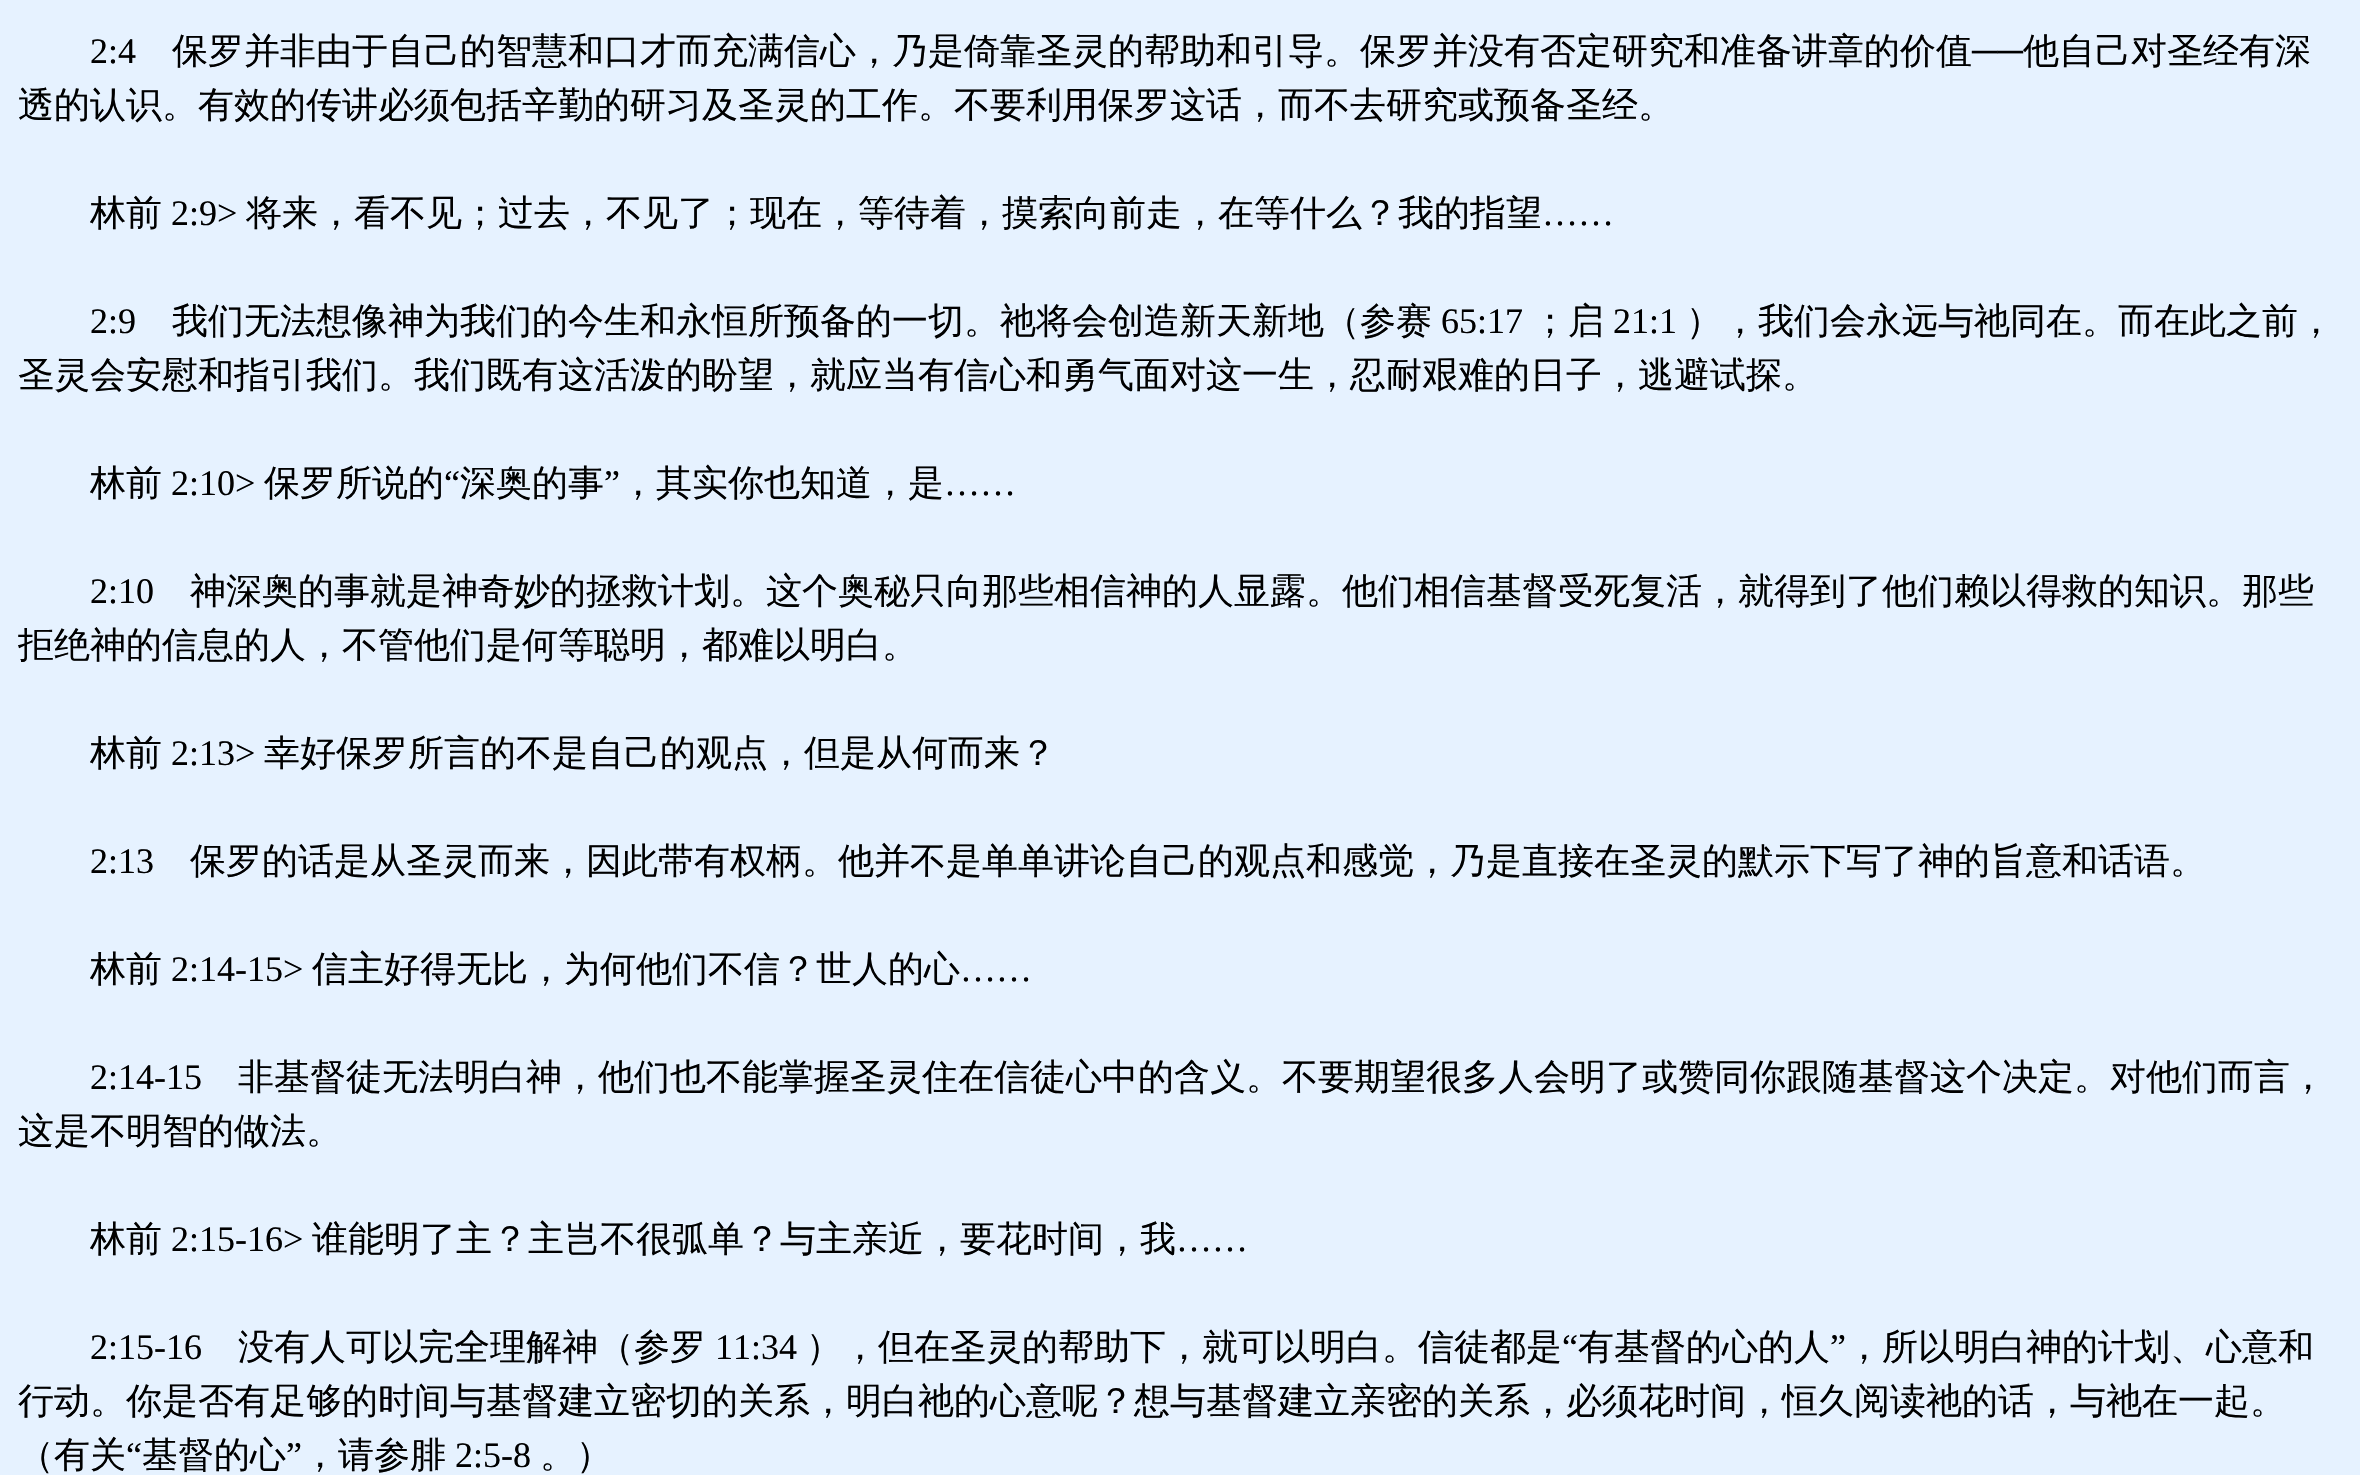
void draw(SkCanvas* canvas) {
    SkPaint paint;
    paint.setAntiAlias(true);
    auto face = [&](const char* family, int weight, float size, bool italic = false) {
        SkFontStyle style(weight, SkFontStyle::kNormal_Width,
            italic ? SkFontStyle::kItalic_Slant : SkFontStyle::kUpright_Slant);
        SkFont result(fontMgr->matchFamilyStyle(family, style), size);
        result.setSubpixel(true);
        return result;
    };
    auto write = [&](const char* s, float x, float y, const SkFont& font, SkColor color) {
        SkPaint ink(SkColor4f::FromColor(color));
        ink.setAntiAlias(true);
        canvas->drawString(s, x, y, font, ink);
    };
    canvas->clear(SkColorSetRGB(230, 242, 255));
    auto kFont1 = face("Liberation Serif", 400, 36);
    write("2:4", 90, 63, kFont1, SK_ColorBLACK);
    auto kFont2 = face("WenQuanYi Zen Hei", 500, 36);
    write("保罗并非由于自己的智慧和口才而充满信心，乃是倚靠圣灵的帮助和引导。保罗并没有否定研究和准备讲章的价值", 172, 63, kFont2, SK_ColorBLACK);
    write("──", 1972, 63, kFont1, SK_ColorBLACK);
    write("他自己对圣经有深", 2023, 63, kFont2, SK_ColorBLACK);
    write("透的认识。有效的传讲必须包括辛勤的研习及圣灵的工作。不要利用保罗这话，而不去研究或预备圣经。", 18, 117, kFont2, SK_ColorBLACK);
    write("林前", 90, 225, kFont2, SK_ColorBLACK);
    write("2:9>", 171, 225, kFont1, SK_ColorBLACK);
    write("将来，看不见；过去，不见了；现在，等待着，摸索向前走，在等什么？我的指望", 246, 225, kFont2, SK_ColorBLACK);
    write("……", 1542, 225, kFont1, SK_ColorBLACK);
    write("2:9", 90, 333, kFont1, SK_ColorBLACK);
    write("我们无法想像神为我们的今生和永恒所预备的一切。祂将会创造新天新地（参赛", 172, 333, kFont2, SK_ColorBLACK);
    write("65:17", 1441, 333, kFont1, SK_ColorBLACK);
    write("；启", 1532, 333, kFont2, SK_ColorBLACK);
    write("21:1", 1613, 333, kFont1, SK_ColorBLACK);
    write("），我们会永远与祂同在。而在此之前，", 1686, 333, kFont2, SK_ColorBLACK);
    write("圣灵会安慰和指引我们。我们既有这活泼的盼望，就应当有信心和勇气面对这一生，忍耐艰难的日子，逃避试探。", 18, 387, kFont2, SK_ColorBLACK);
    write("林前", 90, 495, kFont2, SK_ColorBLACK);
    write("2:10>", 171, 495, kFont1, SK_ColorBLACK);
    write("保罗所说的", 264, 495, kFont2, SK_ColorBLACK);
    write("“", 444, 495, kFont1, SK_ColorBLACK);
    write("深奥的事", 460, 495, kFont2, SK_ColorBLACK);
    write("”", 604, 495, kFont1, SK_ColorBLACK);
    write("，其实你也知道，是", 620, 495, kFont2, SK_ColorBLACK);
    write("……", 944, 495, kFont1, SK_ColorBLACK);
    write("2:10", 90, 603, kFont1, SK_ColorBLACK);
    write("神深奥的事就是神奇妙的拯救计划。这个奥秘只向那些相信神的人显露。他们相信基督受死复活，就得到了他们赖以得救的知识。那些", 190, 603, kFont2, SK_ColorBLACK);
    write("拒绝神的信息的人，不管他们是何等聪明，都难以明白。", 18, 657, kFont2, SK_ColorBLACK);
    write("林前", 90, 765, kFont2, SK_ColorBLACK);
    write("2:13>", 171, 765, kFont1, SK_ColorBLACK);
    write("幸好保罗所言的不是自己的观点，但是从何而来？", 264, 765, kFont2, SK_ColorBLACK);
    write("2:13", 90, 873, kFont1, SK_ColorBLACK);
    write("保罗的话是从圣灵而来，因此带有权柄。他并不是单单讲论自己的观点和感觉，乃是直接在圣灵的默示下写了神的旨意和话语。", 190, 873, kFont2, SK_ColorBLACK);
    write("林前", 90, 981, kFont2, SK_ColorBLACK);
    write("2:14-15>", 171, 981, kFont1, SK_ColorBLACK);
    write("信主好得无比，为何他们不信？世人的心", 312, 981, kFont2, SK_ColorBLACK);
    write("……", 960, 981, kFont1, SK_ColorBLACK);
    write("2:14-15", 90, 1089, kFont1, SK_ColorBLACK);
    write("非基督徒无法明白神，他们也不能掌握圣灵住在信徒心中的含义。不要期望很多人会明了或赞同你跟随基督这个决定。对他们而言，", 238, 1089, kFont2, SK_ColorBLACK);
    write("这是不明智的做法。", 18, 1143, kFont2, SK_ColorBLACK);
    write("林前", 90, 1251, kFont2, SK_ColorBLACK);
    write("2:15-16>", 171, 1251, kFont1, SK_ColorBLACK);
    write("谁能明了主？主岂不很弧单？与主亲近，要花时间，我", 312, 1251, kFont2, SK_ColorBLACK);
    write("……", 1176, 1251, kFont1, SK_ColorBLACK);
    write("2:15-16", 90, 1359, kFont1, SK_ColorBLACK);
    write("没有人可以完全理解神（参罗", 238, 1359, kFont2, SK_ColorBLACK);
    write("11:34", 715, 1359, kFont1, SK_ColorBLACK);
    write("），但在圣灵的帮助下，就可以明白。信徒都是", 806, 1359, kFont2, SK_ColorBLACK);
    write("“", 1562, 1359, kFont1, SK_ColorBLACK);
    write("有基督的心的人", 1578, 1359, kFont2, SK_ColorBLACK);
    write("”", 1830, 1359, kFont1, SK_ColorBLACK);
    write("，所以明白神的计划、心意和", 1846, 1359, kFont2, SK_ColorBLACK);
    write("行动。你是否有足够的时间与基督建立密切的关系，明白祂的心意呢？想与基督建立亲密的关系，必须花时间，恒久阅读祂的话，与祂在一起。", 18, 1413, kFont2, SK_ColorBLACK);
    write("（有关", 18, 1467, kFont2, SK_ColorBLACK);
    write("“", 126, 1467, kFont1, SK_ColorBLACK);
    write("基督的心", 142, 1467, kFont2, SK_ColorBLACK);
    write("”", 286, 1467, kFont1, SK_ColorBLACK);
    write("，请参腓", 302, 1467, kFont2, SK_ColorBLACK);
    write("2:5-8", 455, 1467, kFont1, SK_ColorBLACK);
    write("。）", 540, 1467, kFont2, SK_ColorBLACK);
}
